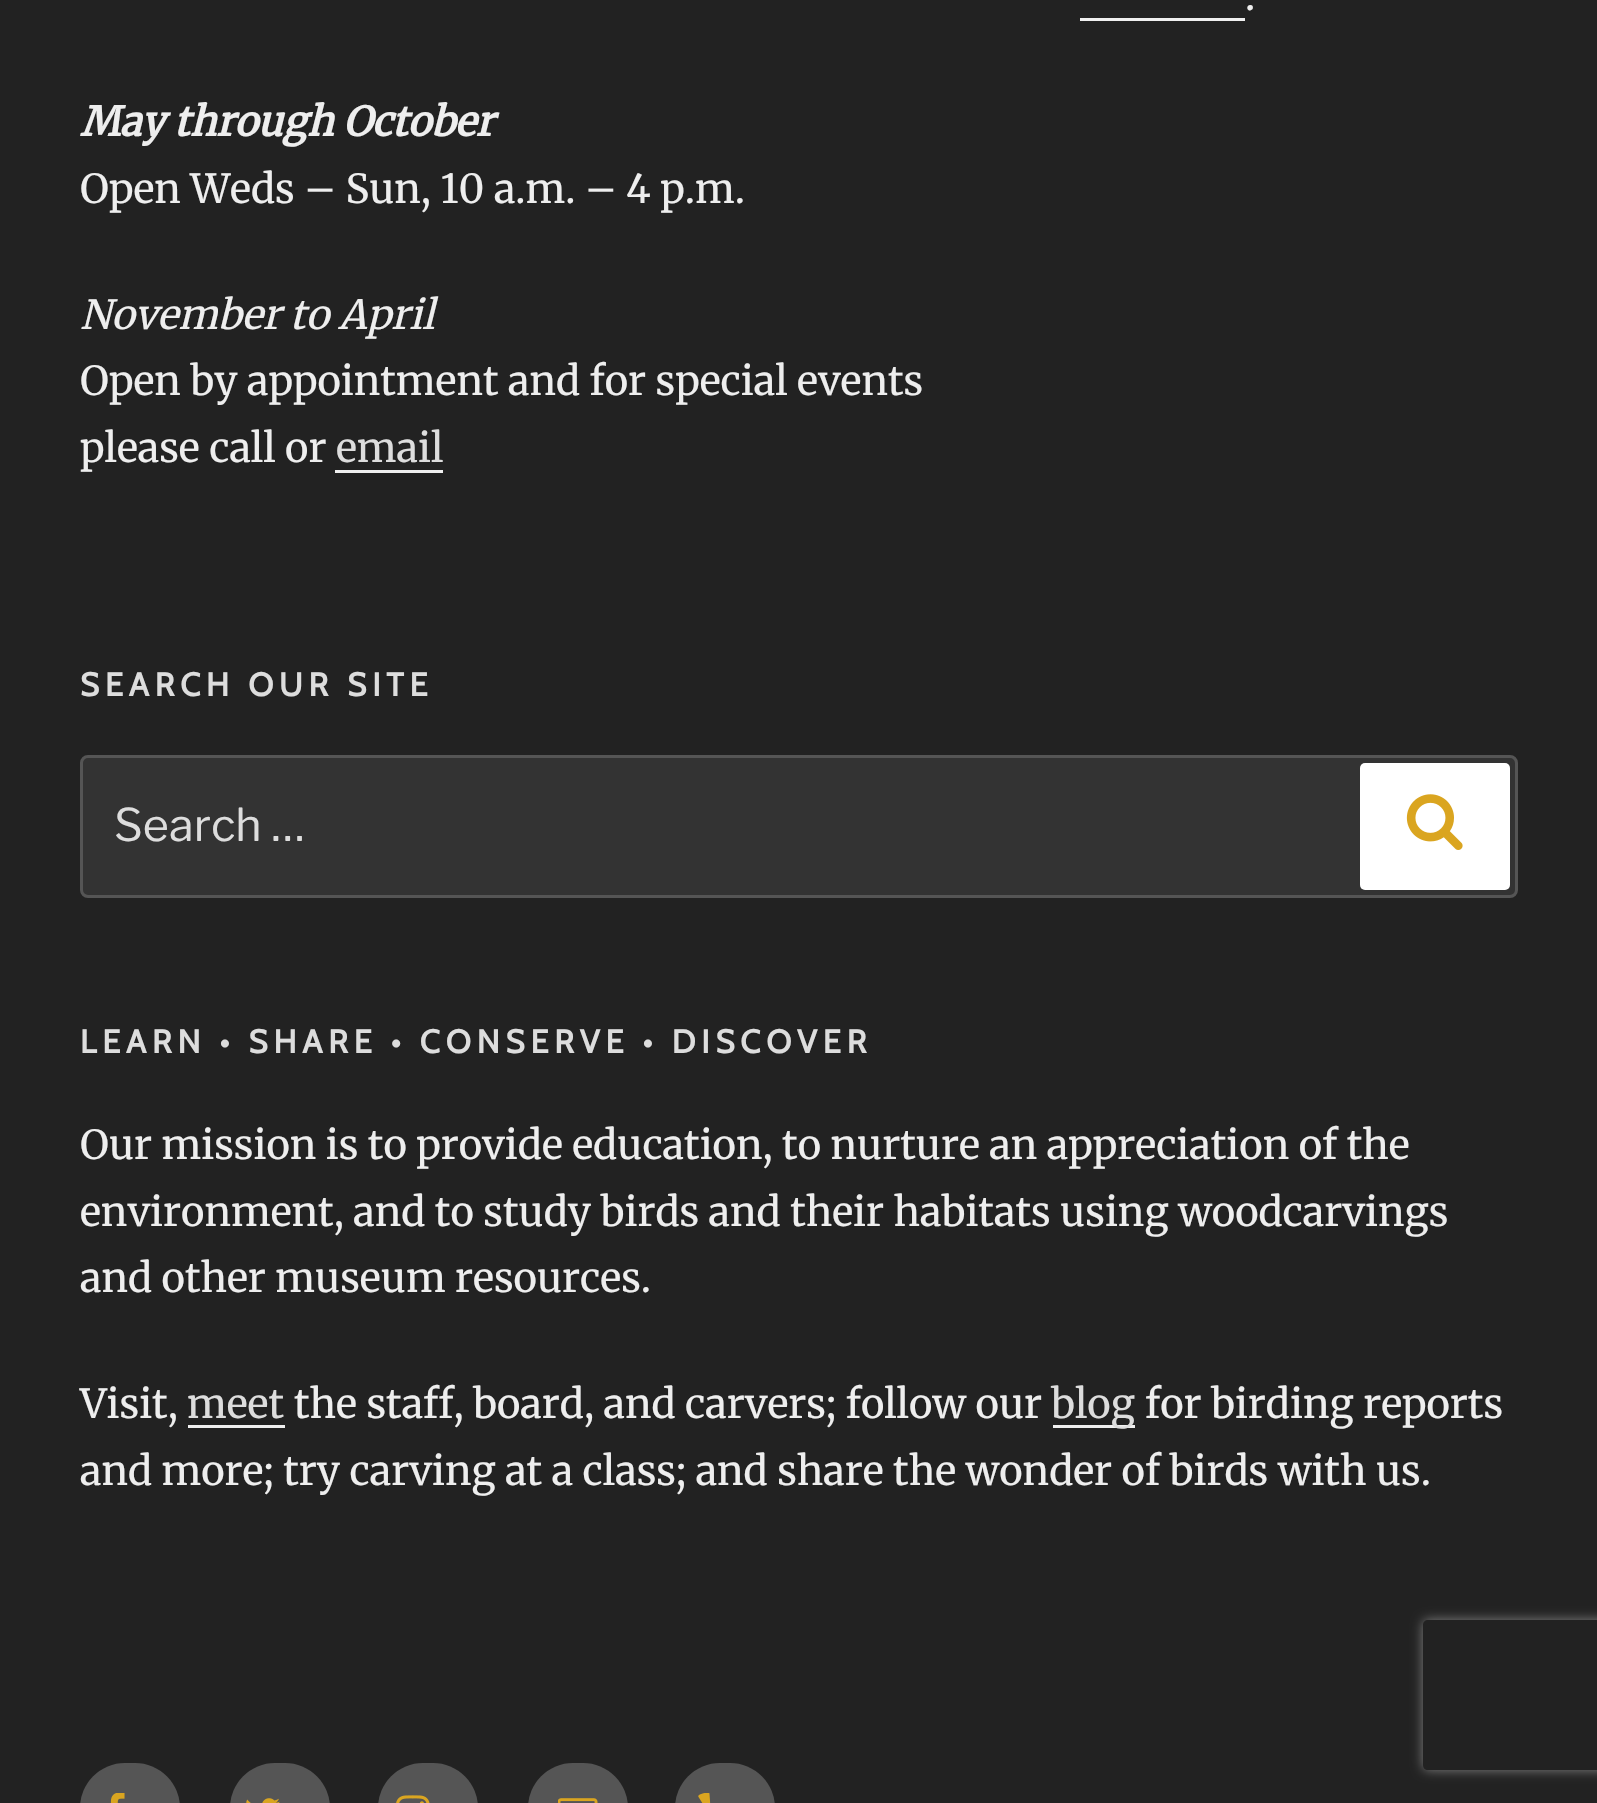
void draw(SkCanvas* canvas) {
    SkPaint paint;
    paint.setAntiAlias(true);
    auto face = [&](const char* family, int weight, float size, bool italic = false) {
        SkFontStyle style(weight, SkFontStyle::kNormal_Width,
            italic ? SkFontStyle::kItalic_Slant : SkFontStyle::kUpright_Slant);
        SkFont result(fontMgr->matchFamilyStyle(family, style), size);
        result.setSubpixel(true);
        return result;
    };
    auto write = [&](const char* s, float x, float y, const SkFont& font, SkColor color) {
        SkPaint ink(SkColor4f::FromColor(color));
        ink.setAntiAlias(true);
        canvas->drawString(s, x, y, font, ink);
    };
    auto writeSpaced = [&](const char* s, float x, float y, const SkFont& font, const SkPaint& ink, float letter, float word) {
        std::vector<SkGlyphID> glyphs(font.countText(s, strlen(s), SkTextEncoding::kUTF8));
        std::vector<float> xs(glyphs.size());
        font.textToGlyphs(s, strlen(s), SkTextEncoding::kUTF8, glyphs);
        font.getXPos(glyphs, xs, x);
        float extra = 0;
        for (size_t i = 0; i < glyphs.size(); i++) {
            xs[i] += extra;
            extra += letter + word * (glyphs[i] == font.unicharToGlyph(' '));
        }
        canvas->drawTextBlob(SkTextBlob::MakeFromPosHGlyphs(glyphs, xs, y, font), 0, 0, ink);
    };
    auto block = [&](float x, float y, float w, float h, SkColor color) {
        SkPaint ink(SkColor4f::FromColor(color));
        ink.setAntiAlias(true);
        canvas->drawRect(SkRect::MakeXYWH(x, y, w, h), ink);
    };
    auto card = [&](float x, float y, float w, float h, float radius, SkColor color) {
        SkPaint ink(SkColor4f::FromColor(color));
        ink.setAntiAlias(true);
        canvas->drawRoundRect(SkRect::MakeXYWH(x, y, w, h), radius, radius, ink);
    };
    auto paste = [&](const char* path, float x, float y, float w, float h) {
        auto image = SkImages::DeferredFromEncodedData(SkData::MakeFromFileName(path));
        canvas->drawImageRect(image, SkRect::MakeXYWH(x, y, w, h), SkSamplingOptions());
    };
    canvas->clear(SkColorSetRGB(34, 34, 34));
    auto kFont1 = face("Merriweather", 300, 40);
    write(".", 1245, 10, kFont1, SkColorSetRGB(238, 238, 238));
    block(1080, 18, 165, 3, SkColorSetRGB(240, 240, 240));
    auto kFont2 = face("Merriweather", 700, 40, true);
    write("May through October", 80, 136, kFont2, SkColorSetRGB(238, 238, 238));
    write("Open Weds – Sun, 10 a.m. – 4 p.m.", 80, 203, kFont1, SkColorSetRGB(238, 238, 238));
    auto kFont3 = face("Merriweather", 300, 40, true);
    write("November to April", 80, 329, kFont3, SkColorSetRGB(238, 238, 238));
    write("Open by appointment and for special events", 80, 395, kFont1, SkColorSetRGB(238, 238, 238));
    write("please call or", 80, 462, kFont1, SkColorSetRGB(238, 238, 238));
    write("email", 336, 462, kFont1, SkColorSetRGB(221, 221, 221));
    block(335, 470, 108, 3, SkColorSetRGB(240, 240, 240));
    auto kFont4 = face("Cabin", 700, 32.5f);
    paint.setColor(SkColorSetRGB(221, 221, 221));
    writeSpaced("SEARCH OUR SITE", 80, 696, kFont4, paint, 5.9f, 0);
    paint.setColor(SkColorSetRGB(51, 51, 51));
    canvas->drawRoundRect(SkRect::MakeXYWH(81.5f, 756.5f, 1435, 140), 6.5f, 6.5f, paint);
    paint.setStyle(SkPaint::kStroke_Style);
    paint.setStrokeWidth(3);
    paint.setColor(SkColorSetRGB(85, 85, 85));
    canvas->drawRoundRect(SkRect::MakeXYWH(81.5f, 756.5f, 1435, 140), 6.5f, 6.5f, paint);
    auto kFont5 = face("Libre Franklin", 100, 45);
    write("Search …", 114, 841, kFont5, SkColorSetRGB(221, 221, 221));
    card(1360, 763, 150, 127, 5, SK_ColorWHITE);
    paste("pic1.png", 1406, 794, 57, 56);
    paint.setStyle(SkPaint::kFill_Style);
    paint.setColor(SkColorSetRGB(221, 221, 221));
    writeSpaced("LEARN • SHARE • CONSERVE • DISCOVER", 80, 1053, kFont4, paint, 5.9f, 0);
    write("Our mission is to provide education, to nurture an appreciation of the", 80, 1159, kFont1, SkColorSetRGB(238, 238, 238));
    write("environment, and to study birds and their habitats using woodcarvings", 80, 1226, kFont1, SkColorSetRGB(238, 238, 238));
    write("and other museum resources.", 80, 1292, kFont1, SkColorSetRGB(238, 238, 238));
    write("Visit,", 80, 1418, kFont1, SkColorSetRGB(238, 238, 238));
    write("meet", 187, 1418, kFont1, SkColorSetRGB(221, 221, 221));
    block(188, 1425, 97, 3, SkColorSetRGB(240, 240, 240));
    write("the staff, board, and carvers; follow our", 294, 1418, kFont1, SkColorSetRGB(238, 238, 238));
    block(1053, 1425, 82, 3, SkColorSetRGB(240, 240, 240));
    write("blog", 1051, 1418, kFont1, SkColorSetRGB(221, 221, 221));
    write("for birding reports", 1145, 1418, kFont1, SkColorSetRGB(238, 238, 238));
    write("and more; try carving at a class; and share the wonder of birds with us.", 80, 1485, kFont1, SkColorSetRGB(238, 238, 238));
    card(80, 1763, 100, 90, 50, SkColorSetRGB(85, 85, 85));
    paste("pic2.png", 110, 1793, 15, 10);
    card(230, 1763, 100, 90, 50, SkColorSetRGB(85, 85, 85));
    paste("pic3.png", 246, 1798, 34, 5);
    card(378, 1763, 100, 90, 50, SkColorSetRGB(85, 85, 85));
    paste("pic4.png", 396, 1795, 34, 8);
    card(528, 1763, 100, 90, 50, SkColorSetRGB(85, 85, 85));
    paste("pic5.png", 558, 1798, 40, 5);
    card(675, 1763, 100, 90, 50, SkColorSetRGB(85, 85, 85));
    paste("pic6.png", 698, 1793, 13, 10);
    canvas->save();
    canvas->clipPath(SkPathBuilder(SkPathFillType::kEvenOdd).moveTo(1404, 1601).lineTo(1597, 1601).lineTo(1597, 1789).lineTo(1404, 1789).close().moveTo(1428, 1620).lineTo(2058, 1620).cubicTo(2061, 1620, 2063, 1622, 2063, 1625).lineTo(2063, 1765).cubicTo(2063, 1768, 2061, 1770, 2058, 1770).lineTo(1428, 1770).cubicTo(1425, 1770, 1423, 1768, 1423, 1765).lineTo(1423, 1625).cubicTo(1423, 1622, 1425, 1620, 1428, 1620).close().detach(), true);
    paint.setColor(SkColorSetRGB(128, 128, 128));
    paint.setMaskFilter(SkMaskFilter::MakeBlur(kNormal_SkBlurStyle, 6));
    canvas->drawRoundRect(SkRect::MakeXYWH(1423, 1620, 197, 150), 5, 5, paint);
    paint.setMaskFilter(nullptr);
    canvas->restore();
}
